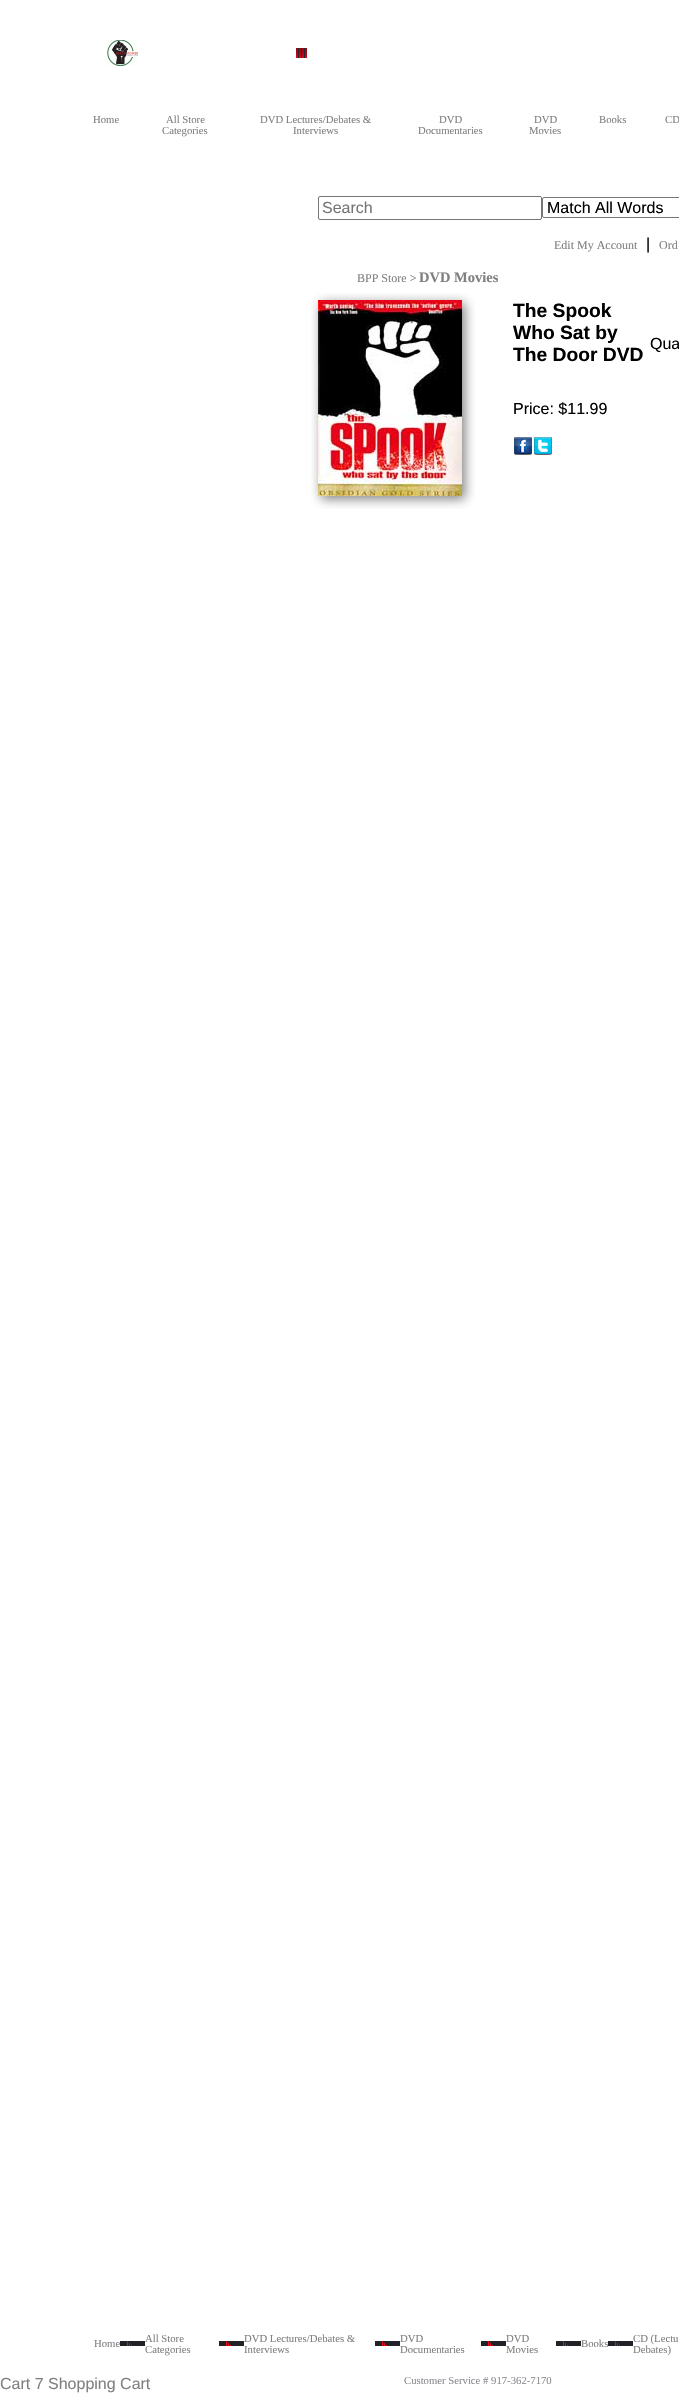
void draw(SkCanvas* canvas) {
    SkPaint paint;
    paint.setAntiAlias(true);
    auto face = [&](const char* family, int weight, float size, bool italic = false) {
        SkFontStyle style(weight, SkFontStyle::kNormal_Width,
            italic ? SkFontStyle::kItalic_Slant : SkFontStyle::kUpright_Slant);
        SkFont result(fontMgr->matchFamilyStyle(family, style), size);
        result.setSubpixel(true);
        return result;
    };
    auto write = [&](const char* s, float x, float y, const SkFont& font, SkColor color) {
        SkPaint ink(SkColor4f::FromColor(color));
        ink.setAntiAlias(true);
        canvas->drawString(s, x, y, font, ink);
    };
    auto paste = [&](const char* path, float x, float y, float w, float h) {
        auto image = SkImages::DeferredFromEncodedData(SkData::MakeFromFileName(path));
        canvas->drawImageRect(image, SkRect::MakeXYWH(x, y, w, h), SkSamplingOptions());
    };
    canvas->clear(SK_ColorWHITE);
    auto kFont1 = face("Liberation Sans", 400, 16);
    write("Cart 7 Shopping Cart", 0, 2389, kFont1, SkColorSetRGB(128, 128, 128));
    paste("pic1.png", 107, 40, 31, 26);
    paste("pic2.png", 296, 48, 11, 10);
    auto kFont2 = face("Liberation Serif", 400, 10.7f);
    write("Home", 93, 123, kFont2, SkColorSetRGB(128, 128, 128));
    write("All Store", 166, 123, kFont2, SkColorSetRGB(128, 128, 128));
    write("Categories", 162, 134, kFont2, SkColorSetRGB(128, 128, 128));
    write("DVD Lectures/Debates &", 260, 123, kFont2, SkColorSetRGB(128, 128, 128));
    write("Interviews", 293, 134, kFont2, SkColorSetRGB(128, 128, 128));
    write("DVD", 439, 123, kFont2, SkColorSetRGB(128, 128, 128));
    write("Documentaries", 418, 134, kFont2, SkColorSetRGB(128, 128, 128));
    write("DVD", 534, 123, kFont2, SkColorSetRGB(128, 128, 128));
    write("Movies", 529, 134, kFont2, SkColorSetRGB(128, 128, 128));
    write("Books", 599, 123, kFont2, SkColorSetRGB(128, 128, 128));
    write("CD", 665, 123, kFont2, SkColorSetRGB(128, 128, 128));
    paint.setStyle(SkPaint::kStroke_Style);
    paint.setStrokeWidth(1);
    paint.setColor(SkColorSetRGB(118, 118, 118));
    canvas->drawRoundRect(SkRect::MakeXYWH(318.5f, 196.5f, 223, 23), 1.5f, 1.5f, paint);
    write("Search", 322, 213, kFont1, SkColorSetRGB(117, 117, 117));
    canvas->drawRoundRect(SkRect::MakeXYWH(542.5f, 197.5f, 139, 20), 1.5f, 1.5f, paint);
    write("Match All Words", 547, 213, kFont1, SK_ColorBLACK);
    auto kFont3 = face("Liberation Serif", 400, 12);
    write("Edit My Account", 554, 249, kFont3, SkColorSetRGB(128, 128, 128));
    write("|", 646, 249, kFont1, SK_ColorBLACK);
    write("Ord", 659, 249, kFont3, SkColorSetRGB(128, 128, 128));
    write("BPP Store >", 357, 282, kFont3, SkColorSetRGB(128, 128, 128));
    auto kFont4 = face("Liberation Serif", 700, 14.5f);
    write("DVD Movies", 419, 282, kFont4, SkColorSetRGB(128, 128, 128));
    paste("pic3.png", 311, 293, 164, 216);
    auto kFont5 = face("Liberation Sans", 700, 19.25f);
    write("The Spook", 513, 317, kFont5, SK_ColorBLACK);
    write("Who Sat by", 513, 339, kFont5, SK_ColorBLACK);
    write("The Door DVD", 513, 361, kFont5, SK_ColorBLACK);
    write("Price: $11.99", 513, 414, kFont1, SK_ColorBLACK);
    paste("pic4.png", 514, 437, 18, 18);
    paste("pic5.png", 534, 437, 18, 18);
    write("Qua", 650, 349, kFont1, SK_ColorBLACK);
    write("Home", 94, 2347, kFont2, SkColorSetRGB(128, 128, 128));
    paste("pic6.png", 120, 2341, 25, 5);
    write("All Store", 145, 2342, kFont2, SkColorSetRGB(128, 128, 128));
    write("Categories", 145, 2353, kFont2, SkColorSetRGB(128, 128, 128));
    paste("pic6.png", 219, 2341, 25, 5);
    write("DVD Lectures/Debates &", 244, 2342, kFont2, SkColorSetRGB(128, 128, 128));
    write("Interviews", 244, 2353, kFont2, SkColorSetRGB(128, 128, 128));
    paste("pic6.png", 375, 2341, 25, 5);
    write("DVD", 400, 2342, kFont2, SkColorSetRGB(128, 128, 128));
    write("Documentaries", 400, 2353, kFont2, SkColorSetRGB(128, 128, 128));
    paste("pic6.png", 481, 2341, 25, 5);
    write("DVD", 506, 2342, kFont2, SkColorSetRGB(128, 128, 128));
    write("Movies", 506, 2353, kFont2, SkColorSetRGB(128, 128, 128));
    paste("pic6.png", 556, 2341, 25, 5);
    write("Books", 581, 2347, kFont2, SkColorSetRGB(128, 128, 128));
    paste("pic6.png", 608, 2341, 25, 5);
    write("CD (Lectu", 633, 2342, kFont2, SkColorSetRGB(128, 128, 128));
    write("Debates)", 633, 2353, kFont2, SkColorSetRGB(128, 128, 128));
    write("Customer Service # 917-362-7170", 404, 2384, kFont2, SkColorSetRGB(138, 139, 144));
}
